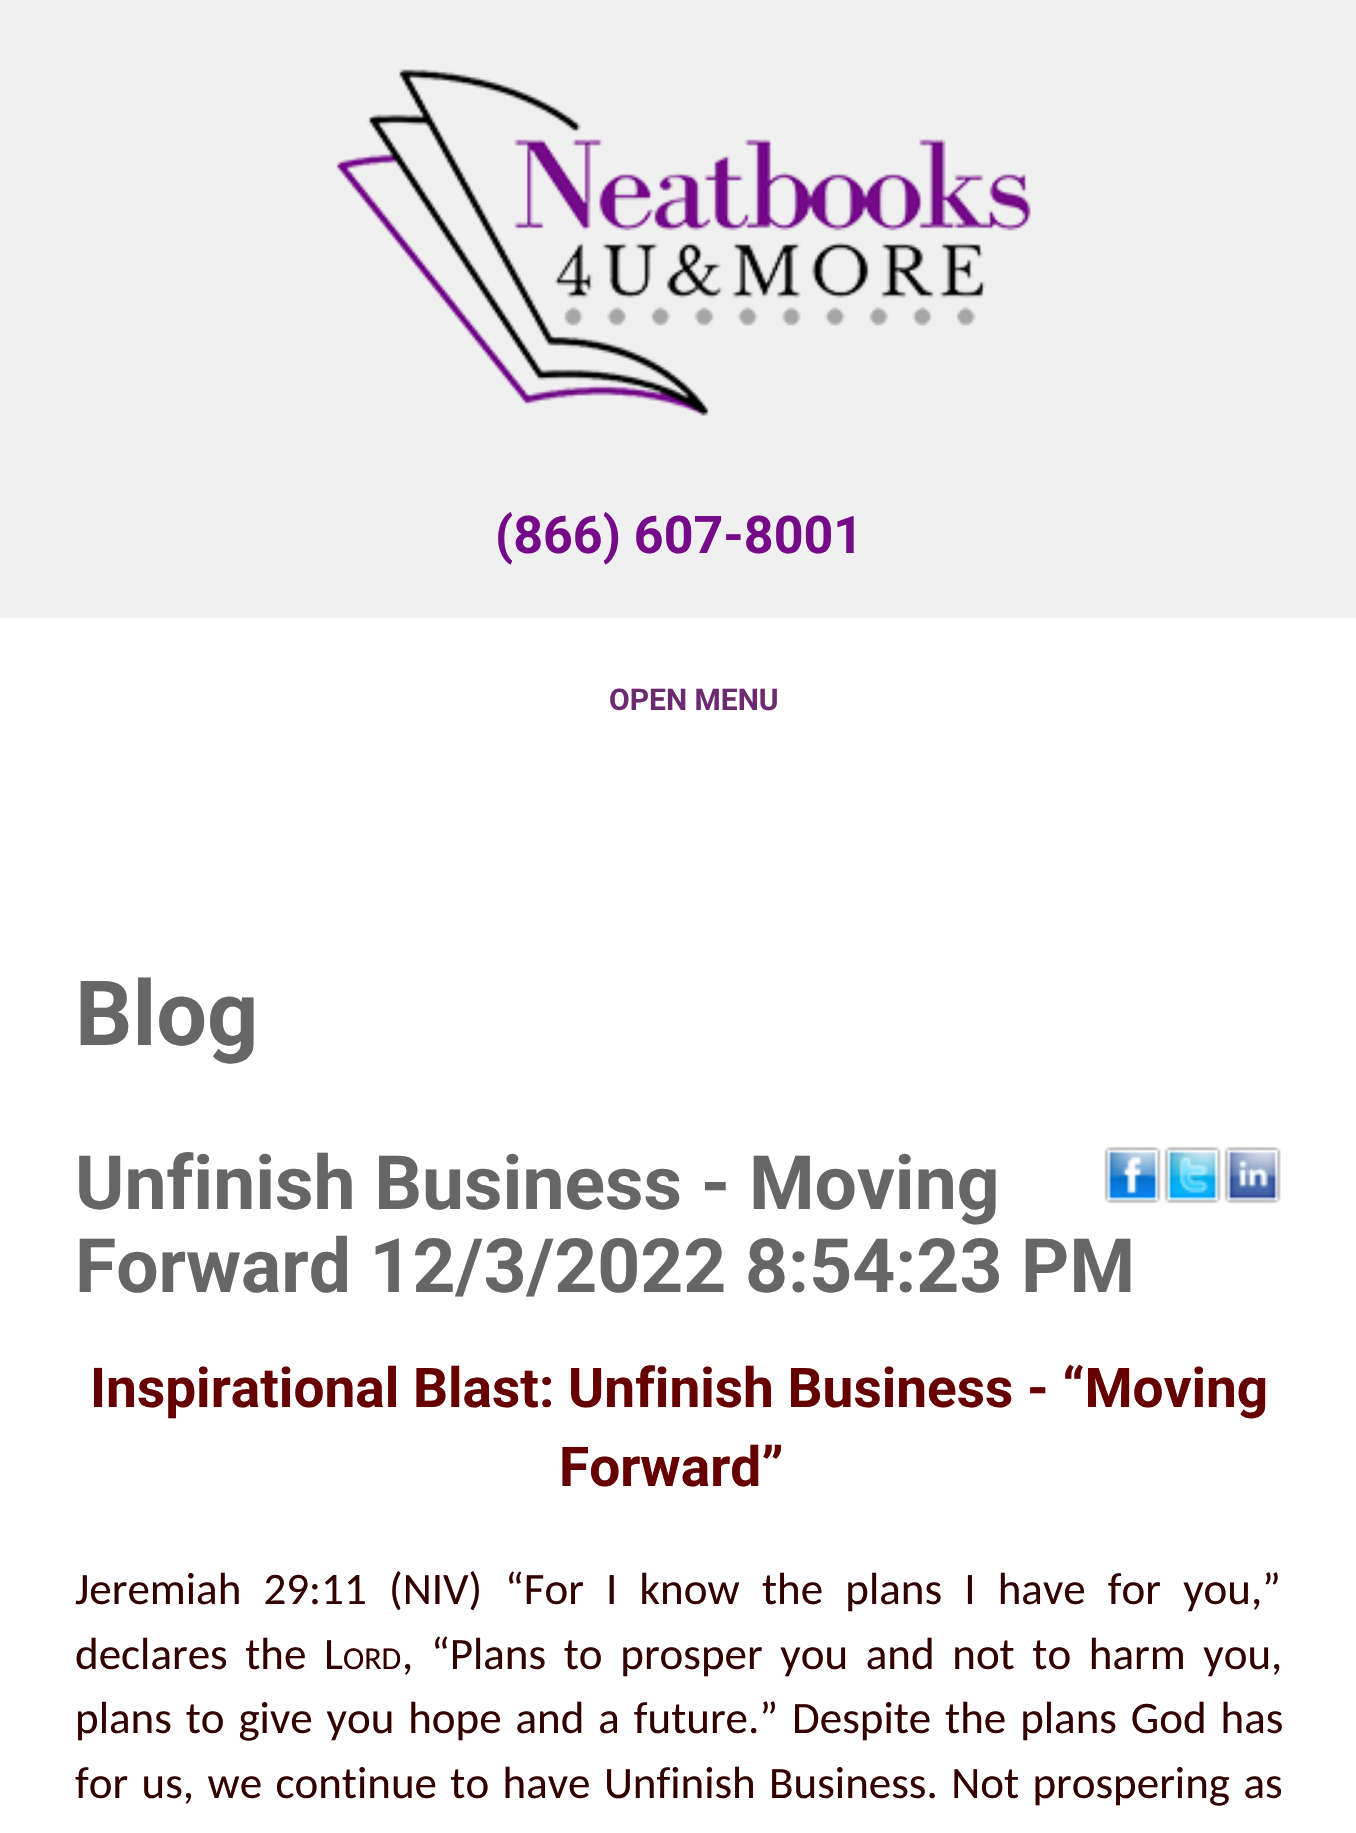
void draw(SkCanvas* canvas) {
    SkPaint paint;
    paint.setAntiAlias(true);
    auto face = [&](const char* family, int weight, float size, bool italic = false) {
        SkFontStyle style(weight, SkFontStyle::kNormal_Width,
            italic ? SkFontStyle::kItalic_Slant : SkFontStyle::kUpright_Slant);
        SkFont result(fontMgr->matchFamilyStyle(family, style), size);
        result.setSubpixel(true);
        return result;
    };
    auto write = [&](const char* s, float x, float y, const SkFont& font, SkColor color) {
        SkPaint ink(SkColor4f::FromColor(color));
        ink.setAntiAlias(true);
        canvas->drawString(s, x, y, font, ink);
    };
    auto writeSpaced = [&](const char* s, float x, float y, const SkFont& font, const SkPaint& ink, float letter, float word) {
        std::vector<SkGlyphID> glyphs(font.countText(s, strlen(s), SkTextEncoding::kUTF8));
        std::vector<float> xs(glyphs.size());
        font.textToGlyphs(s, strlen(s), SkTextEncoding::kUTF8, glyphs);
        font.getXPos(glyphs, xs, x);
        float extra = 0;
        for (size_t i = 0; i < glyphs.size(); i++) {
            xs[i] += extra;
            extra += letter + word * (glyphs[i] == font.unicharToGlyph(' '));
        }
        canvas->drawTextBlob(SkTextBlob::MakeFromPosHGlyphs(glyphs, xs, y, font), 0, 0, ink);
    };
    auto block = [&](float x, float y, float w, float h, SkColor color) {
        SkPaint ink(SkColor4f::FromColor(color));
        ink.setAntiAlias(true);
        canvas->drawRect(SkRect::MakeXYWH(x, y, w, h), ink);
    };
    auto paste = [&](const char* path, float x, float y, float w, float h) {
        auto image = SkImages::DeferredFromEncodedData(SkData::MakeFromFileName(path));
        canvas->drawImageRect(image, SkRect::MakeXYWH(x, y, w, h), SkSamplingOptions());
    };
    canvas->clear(SK_ColorWHITE);
    block(0, 0, 1356, 618, SkColorSetRGB(240, 240, 240));
    paste("pic1.png", 336, 69, 695, 347);
    auto kFont1 = face("Roboto", 700, 52);
    write("(866) 607-8001", 495, 553, kFont1, SkColorSetRGB(117, 11, 137));
    auto kFont2 = face("Roboto", 700, 30);
    write("OPEN MENU", 609, 710, kFont2, SkColorSetRGB(108, 43, 112));
    auto kFont3 = face("Roboto", 700, 90);
    write("Blog", 75, 1045, kFont3, SkColorSetRGB(102, 102, 102));
    auto kFont4 = face("Roboto", 700, 75);
    write("Unfinish Business - Moving", 75, 1209, kFont4, SkColorSetRGB(102, 102, 102));
    write("Forward 12/3/2022 8:54:23 PM", 75, 1292, kFont4, SkColorSetRGB(102, 102, 102));
    paste("pic2.png", 1104, 1146, 57, 58);
    paste("pic3.png", 1164, 1146, 57, 58);
    paste("pic4.png", 1224, 1146, 57, 58);
    auto kFont5 = face("Roboto", 700, 55);
    write("Inspirational Blast: Unfinish Business - “Moving", 90, 1407, kFont5, SkColorSetRGB(102, 0, 0));
    write("Forward”", 559, 1486, kFont5, SkColorSetRGB(102, 0, 0));
    auto kFont6 = face("Carlito", 400, 45);
    paint.setColor(SkColorSetRGB(51, 0, 0));
    writeSpaced("Jeremiah 29:11", 75, 1604, kFont6, paint, 0, 12);
    write("(NIV)", 389, 1604, kFont6, SkColorSetRGB(51, 0, 0));
    writeSpaced("“For I know", 505, 1604, kFont6, paint, 0, 12);
    writeSpaced("the plans I have for you,”", 762, 1604, kFont6, paint, 0, 12);
    writeSpaced("declares the", 75, 1669, kFont6, paint, 0, 7.5f);
    write("L", 324, 1669, kFont6, SkColorSetRGB(51, 0, 0));
    auto kFont7 = face("Carlito", 400, 32);
    write("ORD", 343, 1669, kFont7, SkColorSetRGB(51, 0, 0));
    writeSpaced(", “Plans to prosper you and not to harm you,", 402, 1669, kFont6, paint, 0, 7.5f);
    writeSpaced("plans to give you hope and a future.” Despite the plans God has", 75, 1733, kFont6, paint, 0, 3.75f);
    writeSpaced("for us, we continue to have Unfinish Business. Not prospering as", 75, 1798, kFont6, paint, 0, 3.25f);
}
